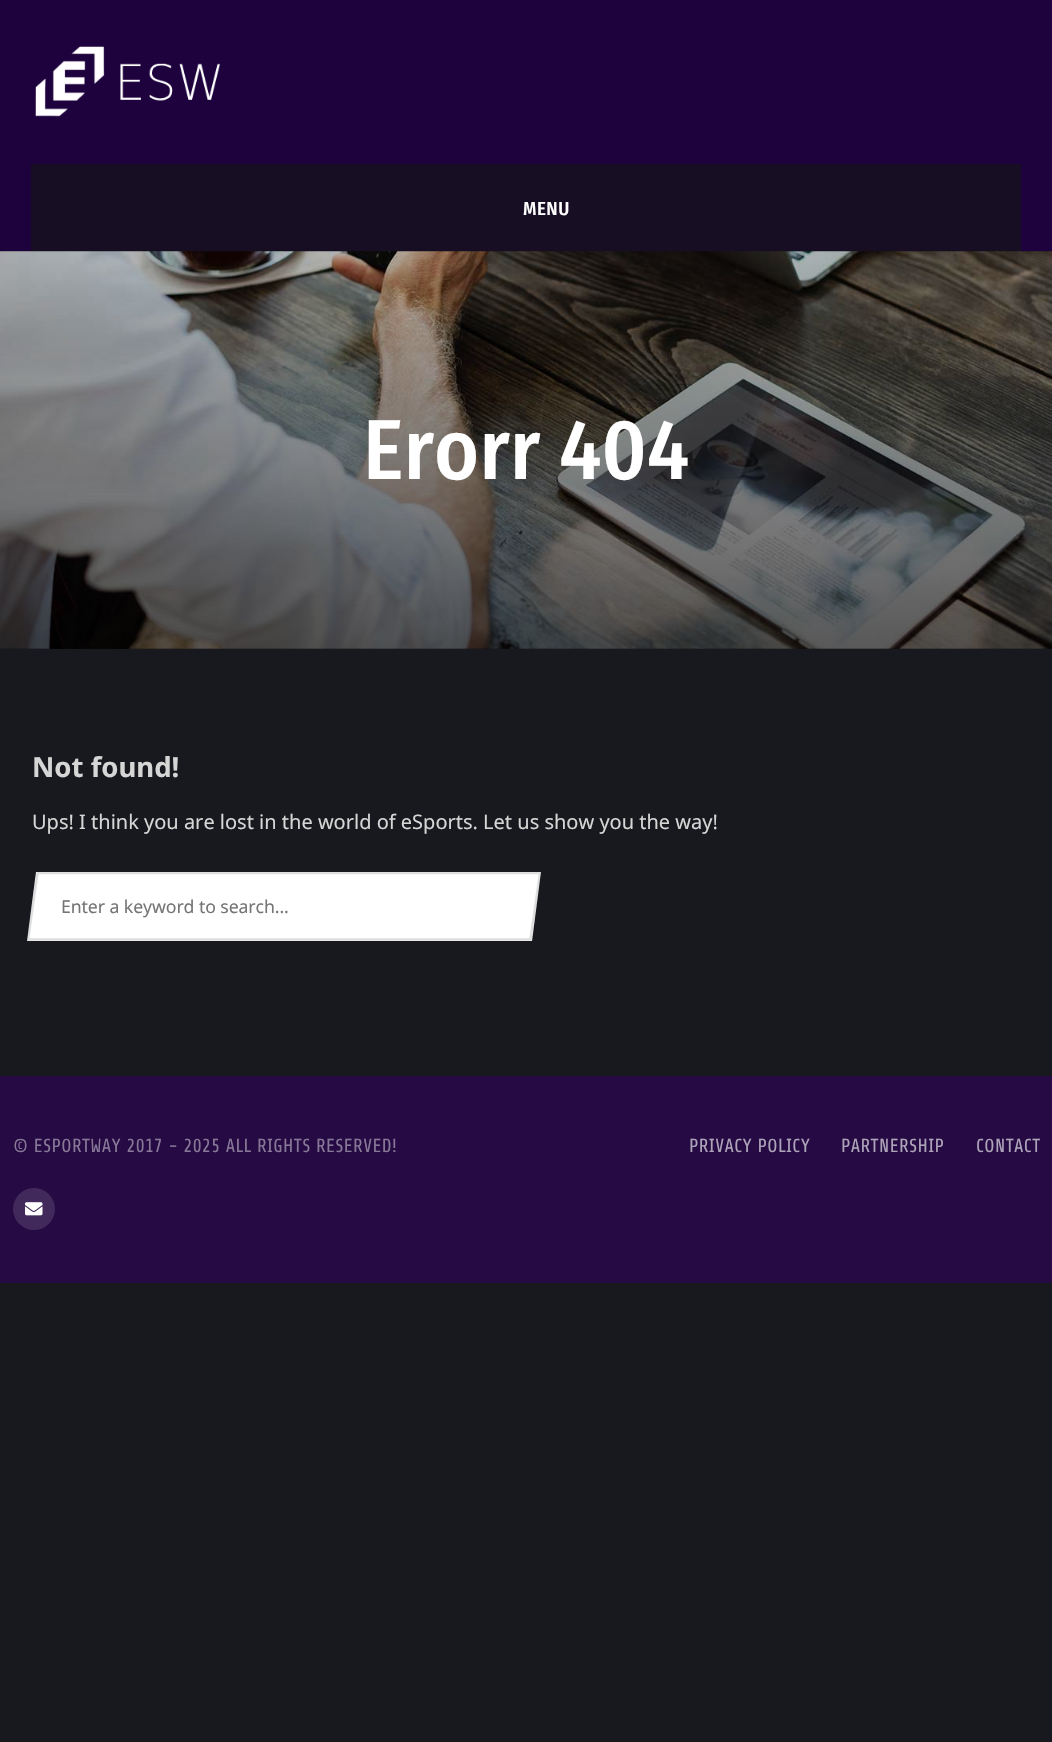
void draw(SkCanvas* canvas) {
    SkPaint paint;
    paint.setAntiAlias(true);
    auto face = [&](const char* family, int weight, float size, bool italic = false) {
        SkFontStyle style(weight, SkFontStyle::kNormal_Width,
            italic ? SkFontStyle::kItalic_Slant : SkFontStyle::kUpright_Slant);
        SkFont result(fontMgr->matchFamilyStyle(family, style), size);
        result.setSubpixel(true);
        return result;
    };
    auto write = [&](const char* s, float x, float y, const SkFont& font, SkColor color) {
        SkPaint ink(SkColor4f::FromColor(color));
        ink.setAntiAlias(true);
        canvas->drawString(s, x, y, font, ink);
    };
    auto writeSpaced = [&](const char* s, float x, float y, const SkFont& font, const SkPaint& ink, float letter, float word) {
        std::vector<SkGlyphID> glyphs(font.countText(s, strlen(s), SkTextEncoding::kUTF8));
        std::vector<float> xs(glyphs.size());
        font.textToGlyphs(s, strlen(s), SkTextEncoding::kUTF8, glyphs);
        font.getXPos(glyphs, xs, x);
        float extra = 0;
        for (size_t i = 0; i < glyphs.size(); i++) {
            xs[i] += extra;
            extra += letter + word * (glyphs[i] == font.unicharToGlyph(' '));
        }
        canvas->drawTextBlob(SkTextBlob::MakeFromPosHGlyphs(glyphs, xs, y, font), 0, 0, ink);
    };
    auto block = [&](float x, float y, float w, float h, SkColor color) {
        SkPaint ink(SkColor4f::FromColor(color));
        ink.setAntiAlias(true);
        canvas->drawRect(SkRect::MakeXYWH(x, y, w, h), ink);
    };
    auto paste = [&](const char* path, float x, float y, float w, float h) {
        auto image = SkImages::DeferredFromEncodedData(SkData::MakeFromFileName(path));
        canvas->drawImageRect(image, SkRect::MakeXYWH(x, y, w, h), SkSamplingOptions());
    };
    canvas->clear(SkColorSetRGB(24, 25, 30));
    block(0, 0, 1052, 251, SkColorSetRGB(30, 2, 61));
    paste("pic1.png", 35, 46, 185, 71);
    block(31, 164, 990, 87, SkColorSetRGB(24, 14, 36));
    auto kFont1 = face("Fira Sans Condensed", 500, 18.75f);
    paint.setColor(SK_ColorWHITE);
    writeSpaced("MENU", 523, 215, kFont1, paint, 0.5f, 0);
    paste("pic2.png", 0, 251, 1052, 398);
    {
        const SkColor colors[] = {SkColorSetARGB(64, 0, 0, 0), SkColorSetARGB(166, 0, 0, 0)};
        const float stops[] = {0, 1};
        const SkPoint ends[] = {{526, 251}, {526, 649}};
        paint.setShader(SkGradientShader::MakeLinear(ends, colors, stops, 2, SkTileMode::kClamp));
        paint.setAlpha(255);
    }
    canvas->drawRect(SkRect::MakeXYWH(0, 251, 1052, 398), paint);
    auto kFont2 = face("Fira Sans Condensed", 500, 85);
    write("Erorr 404", 363, 479, kFont2, SK_ColorWHITE);
    auto kFont3 = face("Noto Sans", 700, 27.5f);
    write("Not found!", 32, 777, kFont3, SkColorSetRGB(214, 214, 214));
    auto kFont4 = face("Noto Sans", 400, 20);
    write("Ups! I think you are lost in the world of eSports. Let us show you the way!", 32, 829, kFont4, SkColorSetRGB(214, 214, 214));
    paint.setShader(nullptr);
    paint.setColor(SK_ColorWHITE);
    canvas->drawPath(SkPathBuilder().moveTo(36, 872).lineTo(541, 872).lineTo(532, 941).lineTo(27, 941).close().detach(), paint);
    paint.setStyle(SkPaint::kStroke_Style);
    paint.setStrokeWidth(2.5f);
    paint.setColor(SkColorSetARGB(33, 0, 0, 0));
    canvas->drawPath(SkPathBuilder().moveTo(37.5f, 873).lineTo(540, 873).lineTo(530.5f, 939.5f).lineTo(28, 939.5f).close().detach(), paint);
    canvas->save();
    canvas->clipPath(SkPathBuilder().moveTo(63.5f, 894).lineTo(503.5f, 894).lineTo(500, 918).lineTo(60, 918).close().detach(), true);
    auto kFont5 = face("Noto Sans", 400, 17.7f);
    paint.setStyle(SkPaint::kFill_Style);
    paint.setColor(SkColorSetRGB(117, 117, 117));
    writeSpaced("Enter a keyword to search...", 61, 913, kFont5, paint, -0.1f, 0);
    canvas->restore();
    block(0, 1076, 1052, 207, SkColorSetRGB(37, 10, 67));
    auto kFont6 = face("Share", 400, 18.75f);
    paint.setColor(SkColorSetRGB(135, 120, 152));
    writeSpaced("© ESPORTWAY 2017 - 2025 ALL RIGHTS RESERVED!", 13, 1152, kFont6, paint, 0.4f, 0);
    paint.setColor(SkColorSetRGB(65, 42, 91));
    canvas->drawCircle(34, 1209, 21, paint);
    paste("pic3.png", 25, 1202, 18, 14);
    paint.setColor(SkColorSetRGB(174, 164, 185));
    writeSpaced("PRIVACY POLICY", 689, 1152, kFont6, paint, 0.4f, 0);
    writeSpaced("PARTNERSHIP", 841, 1152, kFont6, paint, 0.4f, 0);
    writeSpaced("CONTACT", 976, 1152, kFont6, paint, 0.4f, 0);
}
